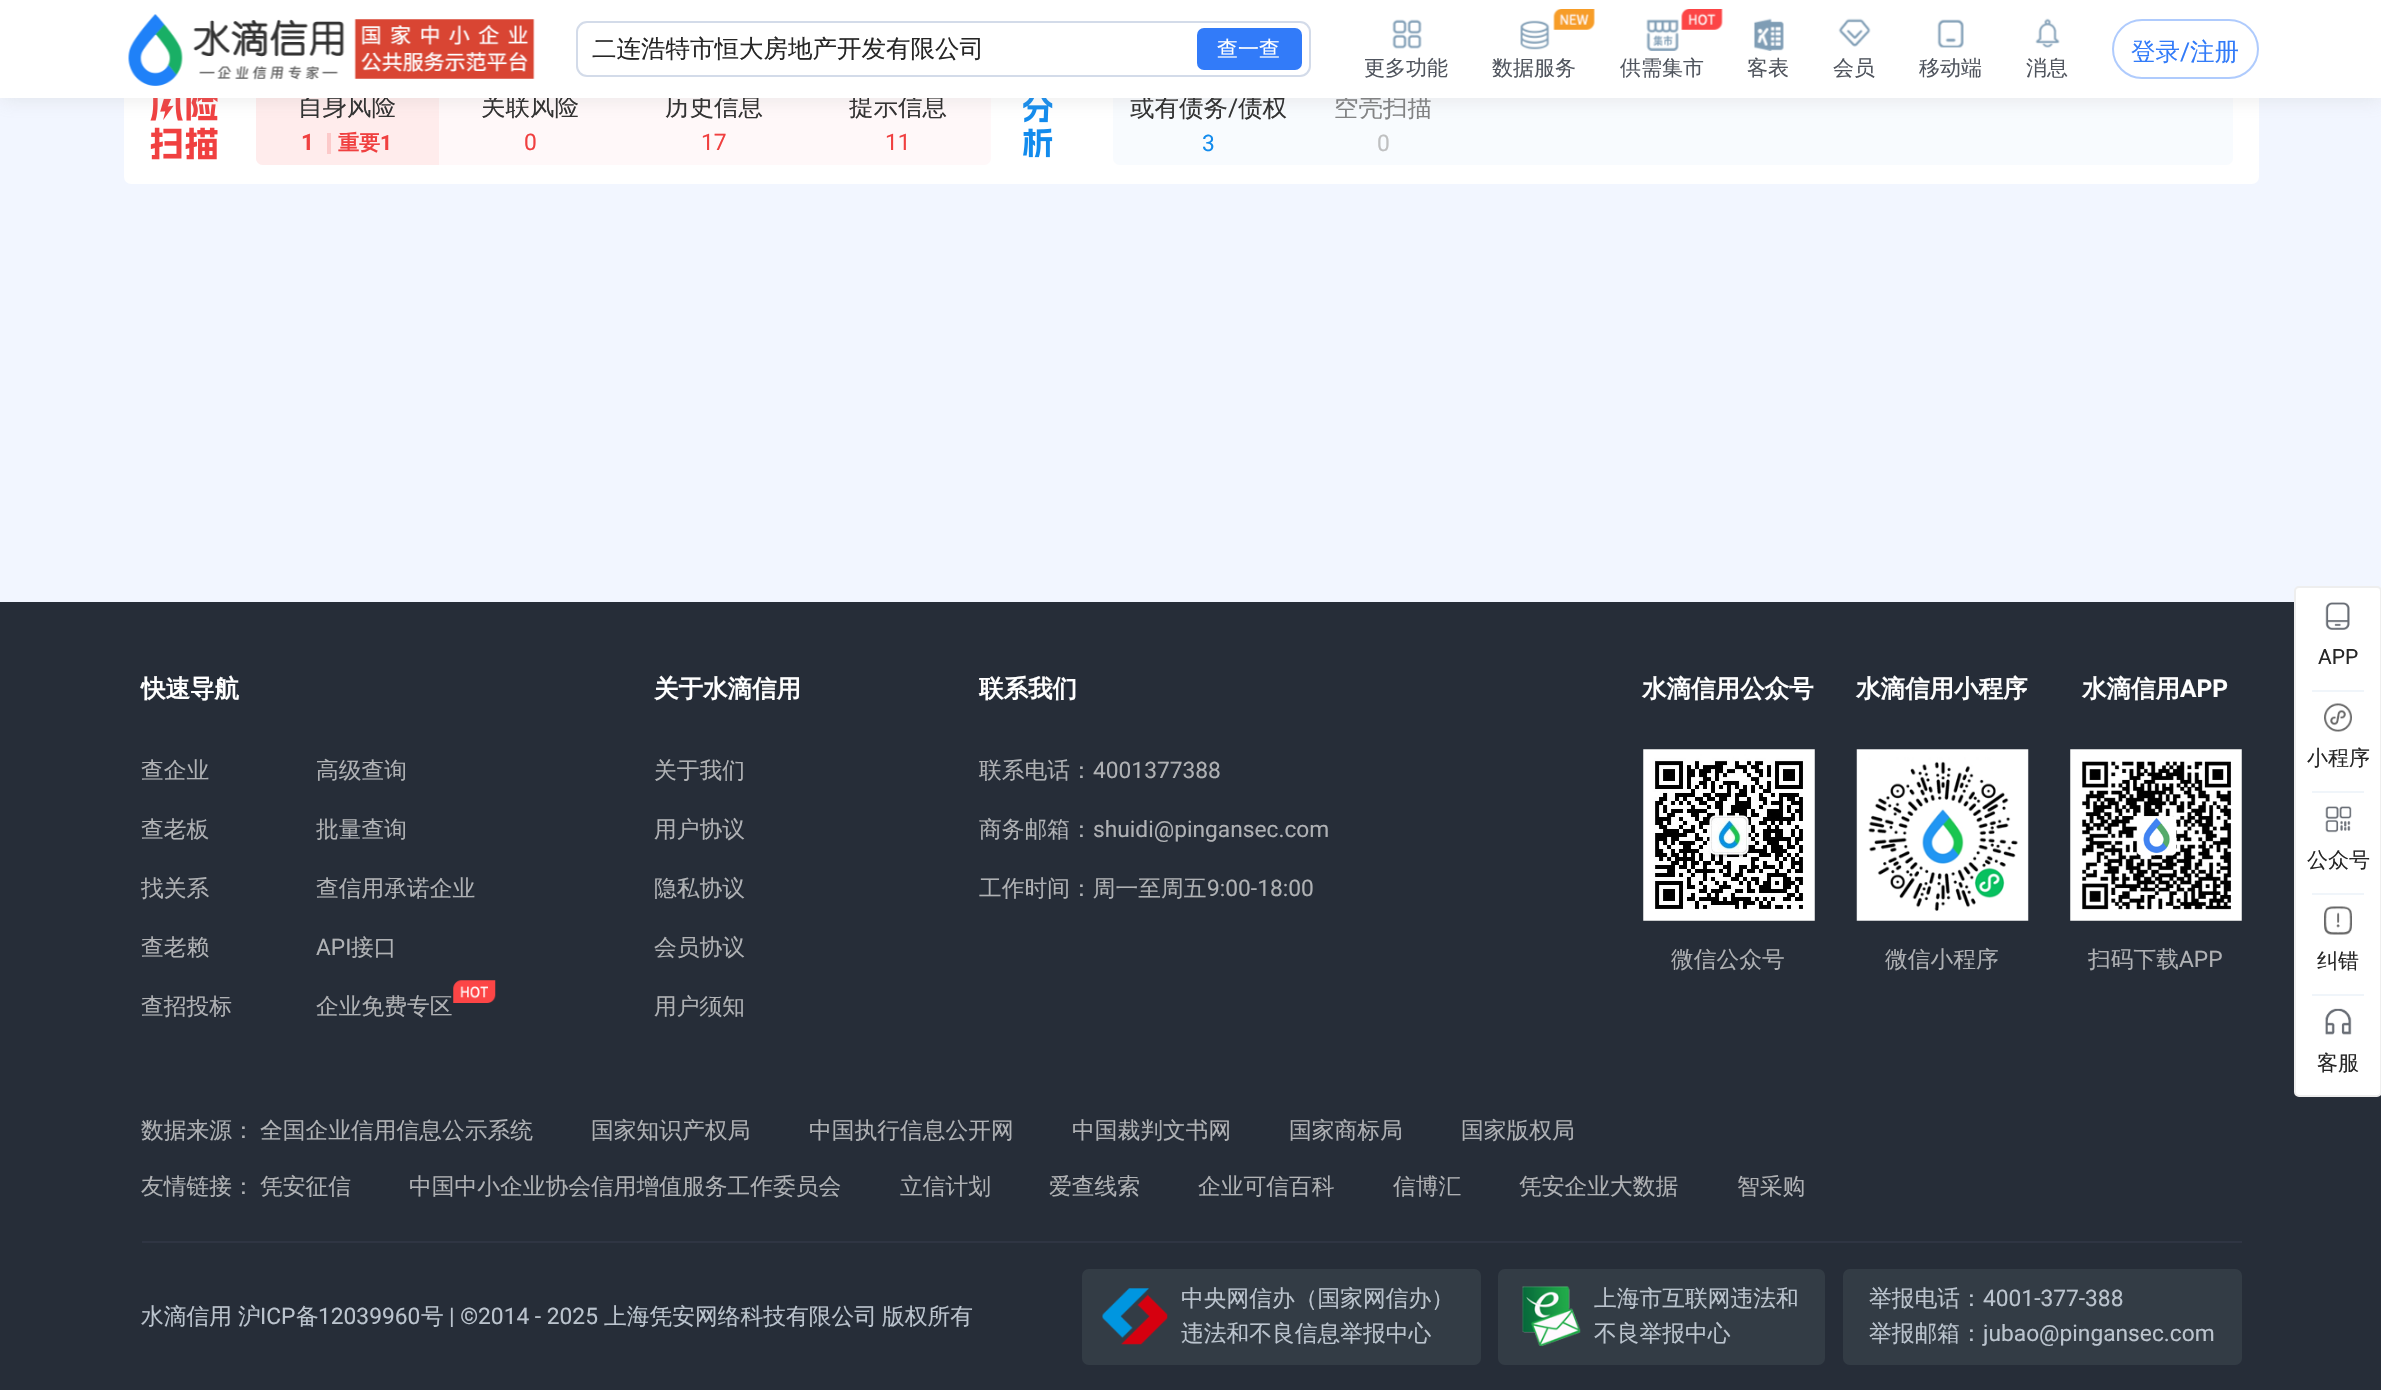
void draw(SkCanvas* canvas) {
    SkPaint paint;
    paint.setAntiAlias(true);
    auto face = [&](const char* family, int weight, float size, bool italic = false) {
        SkFontStyle style(weight, SkFontStyle::kNormal_Width,
            italic ? SkFontStyle::kItalic_Slant : SkFontStyle::kUpright_Slant);
        SkFont result(fontMgr->matchFamilyStyle(family, style), size);
        result.setSubpixel(true);
        return result;
    };
    auto write = [&](const char* s, float x, float y, const SkFont& font, SkColor color) {
        SkPaint ink(SkColor4f::FromColor(color));
        ink.setAntiAlias(true);
        canvas->drawString(s, x, y, font, ink);
    };
    auto block = [&](float x, float y, float w, float h, SkColor color) {
        SkPaint ink(SkColor4f::FromColor(color));
        ink.setAntiAlias(true);
        canvas->drawRect(SkRect::MakeXYWH(x, y, w, h), ink);
    };
    auto card = [&](float x, float y, float w, float h, float radius, SkColor color) {
        SkPaint ink(SkColor4f::FromColor(color));
        ink.setAntiAlias(true);
        canvas->drawRoundRect(SkRect::MakeXYWH(x, y, w, h), radius, radius, ink);
    };
    auto paste = [&](const char* path, float x, float y, float w, float h) {
        auto image = SkImages::DeferredFromEncodedData(SkData::MakeFromFileName(path));
        canvas->drawImageRect(image, SkRect::MakeXYWH(x, y, w, h), SkSamplingOptions());
    };
    canvas->clear(SkColorSetRGB(242, 246, 255));
    card(124, 68, 2135, 116, 7, SK_ColorWHITE);
    paste("pic12.png", 150, 98, 68, 62);
    card(256, 84, 735, 81, 7, SkColorSetRGB(255, 248, 249));
    paint.setColor(SkColorSetRGB(255, 236, 236));
    canvas->drawPath(SkPathBuilder().moveTo(263, 84).lineTo(439, 84).lineTo(439, 165).lineTo(263, 165).cubicTo(259, 165, 256, 162, 256, 158).lineTo(256, 91).cubicTo(256, 87, 259, 84, 263, 84).close().detach(), paint);
    paste("pic13.png", 1023, 98, 30, 60);
    card(1113, 84, 1120, 81, 7, SkColorSetRGB(248, 251, 254));
    paint.setColor(SkColorSetARGB(51, 161, 161, 161));
    paint.setMaskFilter(SkMaskFilter::MakeBlur(kNormal_SkBlurStyle, 9));
    canvas->drawRect(SkRect::MakeXYWH(0, 2, 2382, 98), paint);
    paint.setMaskFilter(nullptr);
    auto kFont1 = face("WenQuanYi Zen Hei", 500, 24.5f);
    write("自身风险", 298, 115, kFont1, SkColorSetRGB(51, 51, 51));
    write("关联风险", 481, 115, kFont1, SkColorSetRGB(51, 51, 51));
    write("历史信息", 665, 115, kFont1, SkColorSetRGB(51, 51, 51));
    write("提示信息", 849, 115, kFont1, SkColorSetRGB(51, 51, 51));
    write("或有债务", 1130, 116, kFont1, SkColorSetRGB(51, 51, 51));
    auto kFont2 = face("Roboto", 400, 24.5f);
    write("/", 1228, 116, kFont2, SkColorSetRGB(51, 51, 51));
    write("债权", 1238, 116, kFont1, SkColorSetRGB(51, 51, 51));
    write("空壳扫描", 1334, 116, kFont1, SkColorSetRGB(130, 131, 132));
    block(0, 0, 2381, 98, SK_ColorWHITE);
    paste("pic1.png", 128, 14, 217, 72);
    paste("pic2.png", 354, 19, 181, 60);
    paint.setStyle(SkPaint::kStroke_Style);
    paint.setStrokeWidth(2);
    paint.setColor(SkColorSetRGB(211, 219, 233));
    canvas->drawRoundRect(SkRect::MakeXYWH(577, 22, 733, 54), 10, 10, paint);
    write("二连浩特市恒大房地产开发有限公司", 592, 57, kFont1, SkColorSetRGB(38, 38, 38));
    card(1197, 28, 105, 42, 7, SkColorSetRGB(50, 123, 249));
    auto kFont3 = face("WenQuanYi Zen Hei", 500, 21);
    write("查一查", 1217, 56, kFont3, SK_ColorWHITE);
    paint.setColor(SkColorSetRGB(175, 203, 253));
    canvas->drawRoundRect(SkRect::MakeXYWH(2113, 20, 145, 58), 29, 29, paint);
    write("登录", 2131, 60, kFont1, SkColorSetRGB(50, 123, 249));
    write("/", 2180, 60, kFont2, SkColorSetRGB(50, 123, 249));
    write("注册", 2190, 60, kFont1, SkColorSetRGB(50, 123, 249));
    paste("pic3.png", 1392, 19, 30, 30);
    write("更多功能", 1364, 75, kFont3, SkColorSetRGB(80, 85, 94));
    paste("pic4.png", 1520, 20, 30, 30);
    paste("pic5.png", 1553, 9, 42, 21);
    write("数据服务", 1492, 75, kFont3, SkColorSetRGB(80, 85, 94));
    paste("pic6.png", 1646, 19, 33, 32);
    paste("pic7.png", 1681, 9, 42, 21);
    write("供需集市", 1620, 75, kFont3, SkColorSetRGB(80, 85, 94));
    paste("pic8.png", 1753, 18, 31, 33);
    write("客表", 1747, 75, kFont3, SkColorSetRGB(80, 85, 94));
    paste("pic9.png", 1838, 18, 33, 29);
    write("会员", 1833, 75, kFont3, SkColorSetRGB(80, 85, 94));
    paste("pic10.png", 1937, 19, 27, 29);
    write("移动端", 1919, 75, kFont3, SkColorSetRGB(80, 85, 94));
    paste("pic11.png", 2035, 18, 25, 30);
    write("消息", 2026, 75, kFont3, SkColorSetRGB(80, 85, 94));
    auto kFont4 = face("Roboto", 700, 22.75f);
    write("1", 301, 150, kFont4, SkColorSetRGB(240, 64, 64));
    block(327, 133, 4, 21, SkColorSetRGB(252, 202, 202));
    auto kFont5 = face("WenQuanYi Zen Hei", 700, 21);
    write("重要", 338, 150, kFont5, SkColorSetRGB(240, 64, 64));
    auto kFont6 = face("Roboto", 700, 21);
    write("1", 380, 150, kFont6, SkColorSetRGB(240, 64, 64));
    auto kFont7 = face("Roboto", 400, 22.75f);
    write("0", 524, 150, kFont7, SkColorSetRGB(240, 64, 64));
    write("17", 701, 150, kFont7, SkColorSetRGB(240, 64, 64));
    write("11", 885, 150, kFont7, SkColorSetRGB(240, 64, 64));
    write("3", 1202, 151, kFont7, SkColorSetRGB(18, 139, 237));
    write("0", 1377, 151, kFont7, SkColorSetRGB(191, 192, 193));
    block(0, 602, 2381, 788, SkColorSetRGB(38, 45, 56));
    auto kFont8 = face("WenQuanYi Zen Hei", 700, 24.5f);
    write("快速导航", 141, 697, kFont8, SK_ColorWHITE);
    auto kFont9 = face("WenQuanYi Zen Hei", 500, 22.75f);
    write("查企业", 141, 778, kFont9, SkColorSetRGB(175, 177, 180));
    write("查老板", 141, 837, kFont9, SkColorSetRGB(175, 177, 180));
    write("找关系", 141, 896, kFont9, SkColorSetRGB(175, 177, 180));
    write("查老赖", 141, 955, kFont9, SkColorSetRGB(175, 177, 180));
    write("查招投标", 141, 1014, kFont9, SkColorSetRGB(175, 177, 180));
    write("高级查询", 316, 778, kFont9, SkColorSetRGB(175, 177, 180));
    write("批量查询", 316, 837, kFont9, SkColorSetRGB(175, 177, 180));
    write("查信用承诺企业", 316, 896, kFont9, SkColorSetRGB(175, 177, 180));
    write("API", 316, 955, kFont7, SkColorSetRGB(175, 177, 180));
    write("接口", 351, 955, kFont9, SkColorSetRGB(175, 177, 180));
    paste("pic14.png", 453, 980, 43, 23);
    write("企业免费专区", 316, 1014, kFont9, SkColorSetRGB(175, 177, 180));
    write("关于水滴信用", 654, 697, kFont8, SK_ColorWHITE);
    write("关于我们", 654, 778, kFont9, SkColorSetRGB(175, 177, 180));
    write("用户协议", 654, 837, kFont9, SkColorSetRGB(175, 177, 180));
    write("隐私协议", 654, 896, kFont9, SkColorSetRGB(175, 177, 180));
    write("会员协议", 654, 955, kFont9, SkColorSetRGB(175, 177, 180));
    write("用户须知", 654, 1014, kFont9, SkColorSetRGB(175, 177, 180));
    write("联系我们", 979, 697, kFont8, SK_ColorWHITE);
    write("联系电话：", 979, 778, kFont9, SkColorSetRGB(175, 177, 180));
    write("4001377388", 1093, 778, kFont7, SkColorSetRGB(175, 177, 180));
    write("商务邮箱：", 979, 837, kFont9, SkColorSetRGB(175, 177, 180));
    write("shuidi@pingansec.com", 1093, 837, kFont7, SkColorSetRGB(175, 177, 180));
    write("工作时间：周一至周五", 979, 896, kFont9, SkColorSetRGB(175, 177, 180));
    write("9:00-18:00", 1207, 896, kFont7, SkColorSetRGB(175, 177, 180));
    write("水滴信用公众号", 1642, 697, kFont8, SK_ColorWHITE);
    paste("pic15.png", 1643, 749, 172, 172);
    write("微信公众号", 1671, 967, kFont9, SkColorSetRGB(175, 177, 180));
    write("水滴信用小程序", 1856, 697, kFont8, SK_ColorWHITE);
    paste("pic16.png", 1856, 749, 173, 172);
    write("微信小程序", 1885, 967, kFont9, SkColorSetRGB(175, 177, 180));
    write("水滴信用", 2082, 697, kFont8, SK_ColorWHITE);
    auto kFont10 = face("Roboto", 700, 24.5f);
    write("APP", 2180, 697, kFont10, SK_ColorWHITE);
    paste("pic17.png", 2070, 749, 172, 172);
    write("扫码下载", 2088, 967, kFont9, SkColorSetRGB(175, 177, 180));
    write("APP", 2179, 967, kFont7, SkColorSetRGB(175, 177, 180));
    write("数据来源：", 141, 1138, kFont9, SkColorSetRGB(175, 177, 180));
    write("全国企业信用信息公示系统", 260, 1138, kFont9, SkColorSetRGB(175, 177, 180));
    write("国家知识产权局", 591, 1138, kFont9, SkColorSetRGB(175, 177, 180));
    write("中国执行信息公开网", 809, 1138, kFont9, SkColorSetRGB(175, 177, 180));
    write("中国裁判文书网", 1072, 1138, kFont9, SkColorSetRGB(175, 177, 180));
    write("国家商标局", 1289, 1138, kFont9, SkColorSetRGB(175, 177, 180));
    write("国家版权局", 1461, 1138, kFont9, SkColorSetRGB(175, 177, 180));
    write("友情链接：", 141, 1194, kFont9, SkColorSetRGB(175, 177, 180));
    write("凭安征信", 260, 1194, kFont9, SkColorSetRGB(175, 177, 180));
    write("中国中小企业协会信用增值服务工作委员会", 409, 1194, kFont9, SkColorSetRGB(175, 177, 180));
    write("立信计划", 900, 1194, kFont9, SkColorSetRGB(175, 177, 180));
    write("爱查线索", 1049, 1194, kFont9, SkColorSetRGB(175, 177, 180));
    write("企业可信百科", 1198, 1194, kFont9, SkColorSetRGB(175, 177, 180));
    write("信博汇", 1393, 1194, kFont9, SkColorSetRGB(175, 177, 180));
    write("凭安企业大数据", 1519, 1194, kFont9, SkColorSetRGB(175, 177, 180));
    write("智采购", 1737, 1194, kFont9, SkColorSetRGB(175, 177, 180));
    block(142, 1241, 2100, 2, SkColorSetRGB(47, 53, 67));
    write("水滴信用", 141, 1324, kFont9, SkColorSetRGB(187, 196, 206));
    write("沪", 238, 1324, kFont9, SkColorSetRGB(187, 196, 206));
    write("ICP", 260, 1324, kFont7, SkColorSetRGB(187, 196, 206));
    write("备", 296, 1324, kFont9, SkColorSetRGB(187, 196, 206));
    write("12039960", 318, 1324, kFont7, SkColorSetRGB(187, 196, 206));
    write("号", 421, 1324, kFont9, SkColorSetRGB(187, 196, 206));
    write("| ©2014 - 2025", 449, 1324, kFont7, SkColorSetRGB(187, 196, 206));
    write("上海凭安网络科技有限公司", 604, 1324, kFont9, SkColorSetRGB(187, 196, 206));
    write("版权所有", 882, 1324, kFont9, SkColorSetRGB(187, 196, 206));
    card(1082, 1269, 399, 96, 7, SkColorSetRGB(51, 60, 69));
    paste("pic18.png", 1102, 1288, 66, 57);
    write("中央网信办（国家网信办）", 1181, 1306, kFont9, SkColorSetRGB(187, 196, 206));
    write("违法和不良信息举报中心", 1181, 1341, kFont9, SkColorSetRGB(187, 196, 206));
    card(1498, 1269, 327, 96, 7, SkColorSetRGB(51, 60, 69));
    paste("pic19.png", 1522, 1286, 59, 60);
    write("上海市互联网违法和", 1594, 1306, kFont9, SkColorSetRGB(187, 196, 206));
    write("不良举报中心", 1594, 1341, kFont9, SkColorSetRGB(187, 196, 206));
    card(1843, 1269, 399, 96, 7, SkColorSetRGB(51, 60, 69));
    write("举报电话：", 1869, 1306, kFont9, SkColorSetRGB(187, 196, 206));
    write("4001-377-388", 1983, 1306, kFont7, SkColorSetRGB(187, 196, 206));
    write("举报邮箱：", 1869, 1341, kFont9, SkColorSetRGB(187, 196, 206));
    write("jubao@pingansec.com", 1983, 1341, kFont7, SkColorSetRGB(187, 196, 206));
    paint.setStyle(SkPaint::kFill_Style);
    paint.setColor(SK_ColorWHITE);
    canvas->drawRoundRect(SkRect::MakeXYWH(2295, 587, 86, 509), 4, 4, paint);
    paint.setStyle(SkPaint::kStroke_Style);
    paint.setColor(SkColorSetRGB(238, 238, 238));
    canvas->drawRoundRect(SkRect::MakeXYWH(2295, 587, 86, 509), 4, 4, paint);
    paste("pic20.png", 2325, 602, 25, 28);
    auto kFont11 = face("Roboto", 400, 21);
    write("APP", 2318, 664, kFont11, SkColorSetRGB(38, 38, 38));
    paste("pic21.png", 2324, 703, 28, 29);
    block(2312, 690, 52, 2, SkColorSetRGB(240, 245, 250));
    write("小程序", 2307, 765, kFont3, SkColorSetRGB(38, 38, 38));
    paste("pic22.png", 2325, 806, 27, 27);
    block(2312, 791, 52, 2, SkColorSetRGB(240, 245, 250));
    write("公众号", 2307, 867, kFont3, SkColorSetRGB(38, 38, 38));
    paste("pic23.png", 2324, 906, 28, 29);
    block(2312, 893, 52, 2, SkColorSetRGB(240, 245, 250));
    write("纠错", 2317, 968, kFont3, SkColorSetRGB(38, 38, 38));
    paste("pic24.png", 2325, 1008, 27, 27);
    block(2312, 994, 52, 2, SkColorSetRGB(240, 245, 250));
    write("客服", 2317, 1070, kFont3, SkColorSetRGB(38, 38, 38));
}
